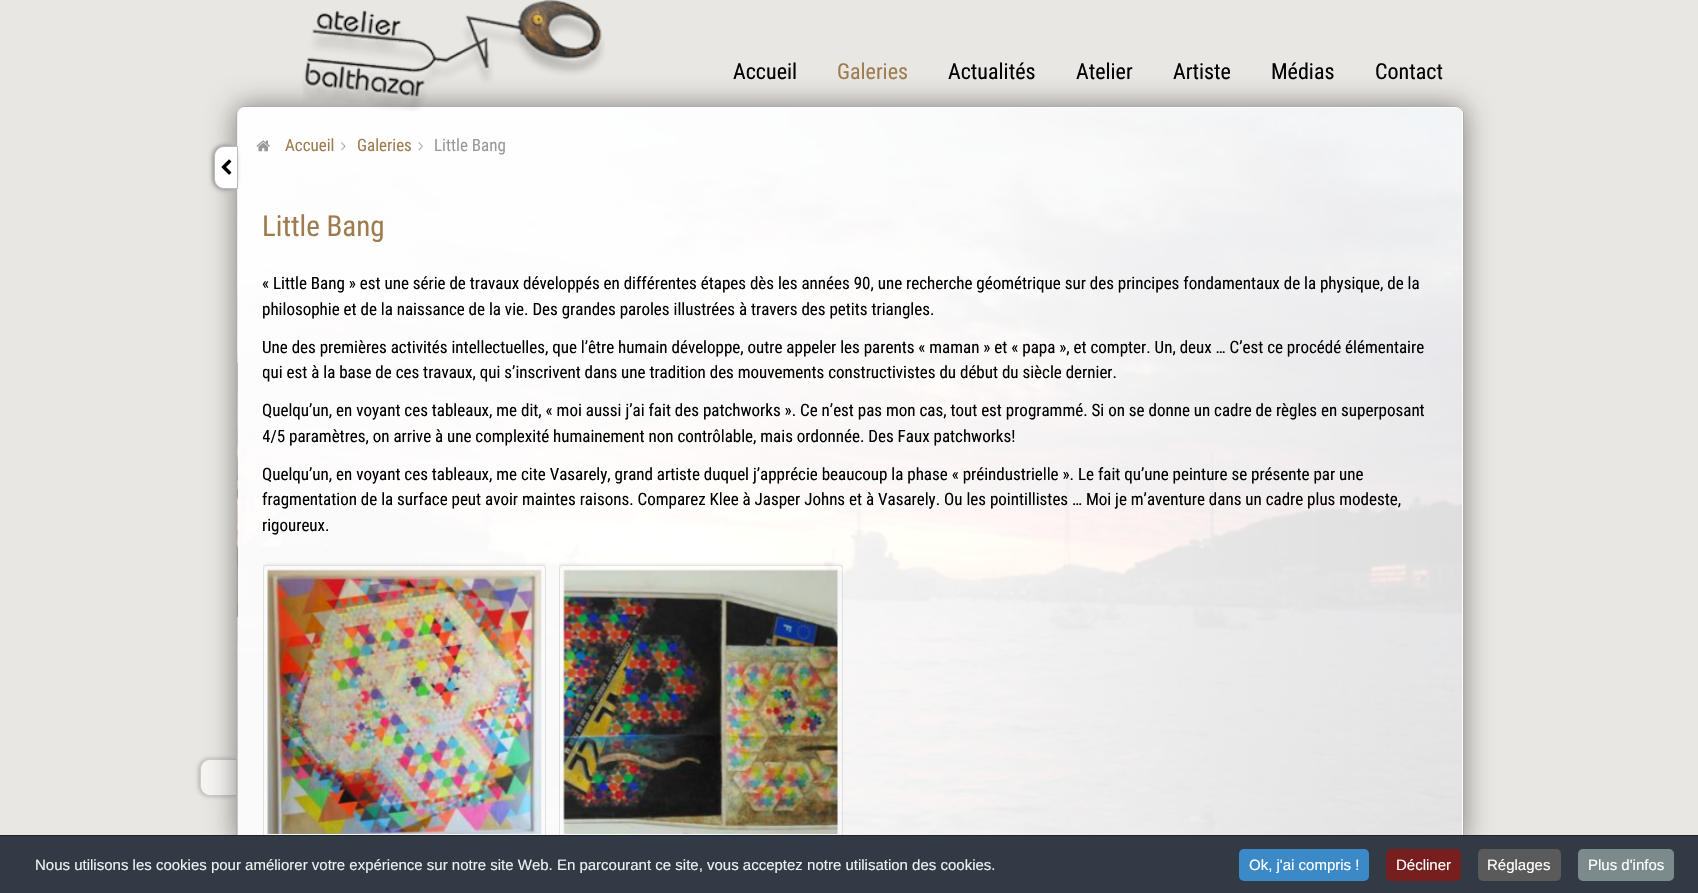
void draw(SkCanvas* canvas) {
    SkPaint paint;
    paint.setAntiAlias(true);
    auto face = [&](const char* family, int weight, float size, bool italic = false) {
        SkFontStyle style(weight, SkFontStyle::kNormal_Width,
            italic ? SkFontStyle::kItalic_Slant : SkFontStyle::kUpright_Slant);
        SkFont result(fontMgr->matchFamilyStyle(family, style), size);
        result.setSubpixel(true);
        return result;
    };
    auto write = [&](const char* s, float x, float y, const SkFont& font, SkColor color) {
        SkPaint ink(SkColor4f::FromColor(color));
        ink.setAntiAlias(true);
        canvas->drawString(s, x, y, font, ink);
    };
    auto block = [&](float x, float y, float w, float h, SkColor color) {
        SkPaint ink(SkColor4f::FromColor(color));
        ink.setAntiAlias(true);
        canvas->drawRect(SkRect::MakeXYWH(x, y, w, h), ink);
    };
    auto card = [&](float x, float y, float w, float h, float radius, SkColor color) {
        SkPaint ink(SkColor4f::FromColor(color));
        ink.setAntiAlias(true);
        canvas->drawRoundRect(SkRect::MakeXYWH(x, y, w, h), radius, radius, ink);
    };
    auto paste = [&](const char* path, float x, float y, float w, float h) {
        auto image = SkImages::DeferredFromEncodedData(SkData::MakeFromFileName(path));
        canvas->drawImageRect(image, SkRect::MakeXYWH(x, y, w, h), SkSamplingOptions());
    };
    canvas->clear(SkColorSetRGB(232, 231, 227));
    paint.setColor(SkColorSetARGB(115, 93, 92, 91));
    paint.setMaskFilter(SkMaskFilter::MakeBlur(kNormal_SkBlurStyle, 2.5f));
    canvas->drawRoundRect(SkRect::MakeXYWH(199, 759, 40, 37), 10, 10, paint);
    paint.setMaskFilter(nullptr);
    paint.setColor(SkColorSetRGB(246, 245, 244));
    canvas->drawPath(SkPathBuilder().moveTo(210, 759.5f).lineTo(239.5f, 759.5f).lineTo(239.5f, 795.5f).lineTo(210, 795.5f).cubicTo(205, 795.5f, 200.5f, 791, 200.5f, 786).lineTo(200.5f, 769).cubicTo(200.5f, 764, 205, 759.5f, 210, 759.5f).close().detach(), paint);
    paint.setStyle(SkPaint::kStroke_Style);
    paint.setStrokeWidth(1);
    paint.setColor(SkColorSetRGB(205, 205, 203));
    canvas->drawPath(SkPathBuilder().moveTo(210, 759.5f).lineTo(239.5f, 759.5f).lineTo(239.5f, 795.5f).lineTo(210, 795.5f).cubicTo(205, 795.5f, 200.5f, 791, 200.5f, 786).lineTo(200.5f, 769).cubicTo(200.5f, 764, 205, 759.5f, 210, 759.5f).close().detach(), paint);
    paint.setStyle(SkPaint::kFill_Style);
    paint.setColor(SkColorSetARGB(115, 0, 0, 0));
    paint.setMaskFilter(SkMaskFilter::MakeBlur(kNormal_SkBlurStyle, 14));
    canvas->drawRoundRect(SkRect::MakeXYWH(236, 106, 1228, 740), 8, 8, paint);
    paint.setMaskFilter(nullptr);
    card(236, 106, 1228, 740, 8, SK_ColorWHITE);
    paint.setStyle(SkPaint::kStroke_Style);
    paint.setColor(SkColorSetARGB(82, 0, 0, 0));
    canvas->drawRoundRect(SkRect::MakeXYWH(236.5f, 106.5f, 1227, 739), 7.5f, 7.5f, paint);
    paste("pic3.png", 237, 108, 1225, 727);
    paint.setStyle(SkPaint::kFill_Style);
    {
        const SkColor colors[] = {SkColorSetARGB(242, 255, 255, 255), SkColorSetARGB(242, 255, 255, 255), SkColorSetARGB(176, 255, 255, 255)};
        const float stops[] = {0, 0.25f, 1};
        const SkPoint ends[] = {{238, 476}, {1463, 476}};
        paint.setShader(SkGradientShader::MakeLinear(ends, colors, stops, 3, SkTileMode::kClamp));
        paint.setAlpha(255);
    }
    canvas->drawRoundRect(SkRect::MakeXYWH(238, 108, 1225, 737), 6, 6, paint);
    paste("pic1.png", 302, 0, 303, 111);
    auto kFont1 = face("Roboto Condensed", 400, 22);
    write("Accueil", 733, 79, kFont1, SK_ColorBLACK);
    write("Galeries", 837, 79, kFont1, SkColorSetRGB(158, 124, 79));
    write("Actualités", 948, 79, kFont1, SK_ColorBLACK);
    write("Atelier", 1076, 79, kFont1, SK_ColorBLACK);
    write("Artiste", 1173, 79, kFont1, SK_ColorBLACK);
    write("Médias", 1271, 79, kFont1, SK_ColorBLACK);
    write("Contact", 1375, 79, kFont1, SK_ColorBLACK);
    paint.setShader(nullptr);
    paint.setColor(SkColorSetARGB(115, 0, 0, 0));
    paint.setMaskFilter(SkMaskFilter::MakeBlur(kNormal_SkBlurStyle, 2.5f));
    canvas->drawRoundRect(SkRect::MakeXYWH(213, 146, 23, 43), 10, 10, paint);
    paint.setMaskFilter(nullptr);
    paint.setColor(SK_ColorWHITE);
    canvas->drawPath(SkPathBuilder().moveTo(224, 146.5f).lineTo(237.5f, 146.5f).lineTo(237.5f, 188.5f).lineTo(224, 188.5f).cubicTo(219, 188.5f, 214.5f, 184, 214.5f, 179).lineTo(214.5f, 156).cubicTo(214.5f, 151, 219, 146.5f, 224, 146.5f).close().detach(), paint);
    paint.setStyle(SkPaint::kStroke_Style);
    paint.setColor(SkColorSetRGB(187, 187, 187));
    canvas->drawPath(SkPathBuilder().moveTo(224, 146.5f).lineTo(237.5f, 146.5f).lineTo(237.5f, 188.5f).lineTo(224, 188.5f).cubicTo(219, 188.5f, 214.5f, 184, 214.5f, 179).lineTo(214.5f, 156).cubicTo(214.5f, 151, 219, 146.5f, 224, 146.5f).close().detach(), paint);
    paste("pic2.png", 221, 159, 11, 16);
    paste("pic4.png", 256, 140, 14, 12);
    auto kFont2 = face("Roboto Condensed", 400, 17);
    write("Accueil", 285, 151, kFont2, SkColorSetRGB(158, 124, 79));
    paste("pic5.png", 341, 142, 5, 9);
    write("Galeries", 357, 151, kFont2, SkColorSetRGB(158, 124, 79));
    paste("pic6.png", 418, 142, 5, 9);
    write("Little Bang", 434, 151, kFont2, SkColorSetRGB(153, 153, 153));
    auto kFont3 = face("Roboto Condensed", 400, 29);
    write("Little Bang", 262, 236, kFont3, SkColorSetRGB(158, 124, 79));
    write("« Little Bang » est une série de travaux développés en différentes étapes dès les années 90, une recherche géométrique sur des principes fondamentaux de la physique, de la", 262, 289, kFont2, SK_ColorBLACK);
    write("philosophie et de la naissance de la vie. Des grandes paroles illustrées à travers des petits triangles.", 262, 315, kFont2, SK_ColorBLACK);
    write("Une des premières activités intellectuelles, que l’être humain développe, outre appeler les parents « maman » et « papa », et compter. Un, deux … C’est ce procédé élémentaire", 262, 353, kFont2, SK_ColorBLACK);
    canvas->save();
    canvas->clipRect(SkRect::MakeXYWH(263, 208, 1175, 637));
    write("qui est à la base de ces travaux, qui s’inscrivent dans une tradition des mouvements constructivistes du début du siècle dernier.", 262, 378, kFont2, SK_ColorBLACK);
    write("Quelqu’un, en voyant ces tableaux, me dit, « moi aussi j’ai fait des patchworks ». Ce n’est pas mon cas, tout est programmé. Si on se donne un cadre de règles en superposant", 262, 416, kFont2, SK_ColorBLACK);
    write("4/5 paramètres, on arrive à une complexité humainement non contrôlable, mais ordonnée. Des Faux patchworks!", 262, 442, kFont2, SK_ColorBLACK);
    write("Quelqu’un, en voyant ces tableaux, me cite Vasarely, grand artiste duquel j’apprécie beaucoup la phase « préindustrielle ». Le fait qu’une peinture se présente par une", 262, 480, kFont2, SK_ColorBLACK);
    canvas->restore();
    write("fragmentation de la surface peut avoir maintes raisons. Comparez Klee à Jasper Johns et à Vasarely. Ou les pointillistes … Moi je m’aventure dans un cadre plus modeste,", 262, 505, kFont2, SK_ColorBLACK);
    write("rigoureux.", 262, 531, kFont2, SK_ColorBLACK);
    canvas->save();
    canvas->clipRect(SkRect::MakeXYWH(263, 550, 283, 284));
    canvas->clipPath(SkPathBuilder(SkPathFillType::kEvenOdd).moveTo(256, 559).lineTo(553, 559).lineTo(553, 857).lineTo(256, 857).close().moveTo(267, 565).lineTo(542, 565).cubicTo(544, 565, 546, 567, 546, 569).lineTo(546, 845).cubicTo(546, 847, 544, 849, 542, 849).lineTo(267, 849).cubicTo(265, 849, 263, 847, 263, 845).lineTo(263, 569).cubicTo(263, 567, 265, 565, 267, 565).close().detach(), true);
    paint.setStyle(SkPaint::kFill_Style);
    paint.setColor(SkColorSetARGB(51, 0, 0, 0));
    paint.setMaskFilter(SkMaskFilter::MakeBlur(kNormal_SkBlurStyle, 2));
    canvas->drawRoundRect(SkRect::MakeXYWH(263, 566, 283, 284), 4, 4, paint);
    paint.setMaskFilter(nullptr);
    canvas->restore();
    paint.setColor(SkColorSetARGB(26, 0, 0, 0));
    canvas->drawPath(SkPathBuilder().moveTo(267, 565).cubicTo(265, 565, 263, 567, 263, 569).lineTo(263, 845).lineTo(264, 845).lineTo(264, 569).cubicTo(264, 567, 265, 566, 267, 566).lineTo(542, 566).cubicTo(544, 566, 545, 567, 545, 569).lineTo(545, 845).lineTo(546, 845).lineTo(546, 569).cubicTo(546, 567, 544, 565, 542, 565).close().detach(), paint);
    paste("pic7.png", 267, 569, 275, 265);
    canvas->save();
    canvas->clipRect(SkRect::MakeXYWH(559, 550, 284, 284));
    canvas->clipPath(SkPathBuilder(SkPathFillType::kEvenOdd).moveTo(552, 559).lineTo(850, 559).lineTo(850, 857).lineTo(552, 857).close().moveTo(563, 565).lineTo(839, 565).cubicTo(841, 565, 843, 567, 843, 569).lineTo(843, 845).cubicTo(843, 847, 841, 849, 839, 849).lineTo(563, 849).cubicTo(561, 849, 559, 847, 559, 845).lineTo(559, 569).cubicTo(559, 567, 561, 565, 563, 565).close().detach(), true);
    paint.setColor(SkColorSetARGB(51, 0, 0, 0));
    paint.setMaskFilter(SkMaskFilter::MakeBlur(kNormal_SkBlurStyle, 2));
    canvas->drawRoundRect(SkRect::MakeXYWH(559, 566, 284, 284), 4, 4, paint);
    paint.setMaskFilter(nullptr);
    canvas->restore();
    paint.setColor(SkColorSetARGB(66, 255, 255, 255));
    canvas->drawPath(SkPathBuilder().moveTo(563, 565).lineTo(839, 565).cubicTo(841, 565, 843, 567, 843, 569).lineTo(843, 834).lineTo(559, 834).lineTo(559, 569).cubicTo(559, 567, 561, 565, 563, 565).close().detach(), paint);
    paint.setColor(SkColorSetARGB(26, 0, 0, 0));
    canvas->drawPath(SkPathBuilder().moveTo(563, 565).cubicTo(561, 565, 559, 567, 559, 569).lineTo(559, 845).lineTo(560, 845).lineTo(560, 569).cubicTo(560, 567, 561, 566, 563, 566).lineTo(839, 566).cubicTo(841, 566, 842, 567, 842, 569).lineTo(842, 845).lineTo(843, 845).lineTo(843, 569).cubicTo(843, 567, 841, 565, 839, 565).close().detach(), paint);
    paste("pic8.png", 563, 569, 275, 265);
    block(0, 836, 1698, 57, SkColorSetRGB(50, 58, 69));
    block(0, 835, 1698, 1, SkColorSetRGB(32, 34, 38));
    auto kFont4 = face("Liberation Sans", 400, 15);
    write("Nous utilisons les cookies pour améliorer votre expérience sur notre site Web. En parcourant ce site, vous acceptez notre utilisation des cookies.", 35, 870, kFont4, SkColorSetRGB(241, 241, 243));
    card(1239, 849, 130, 32, 5, SkColorSetRGB(59, 137, 199));
    write("Ok, j'ai compris !", 1249, 870, kFont4, SK_ColorWHITE);
    card(1386, 849, 75, 32, 5, SkColorSetRGB(119, 31, 31));
    write("Décliner", 1396, 870, kFont4, SK_ColorWHITE);
    card(1478, 849, 83, 32, 5, SkColorSetRGB(90, 90, 90));
    write("Réglages", 1487, 870, kFont4, SK_ColorWHITE);
    card(1578, 849, 96, 32, 5, SkColorSetRGB(123, 138, 139));
    write("Plus d'infos", 1588, 870, kFont4, SK_ColorWHITE);
}
